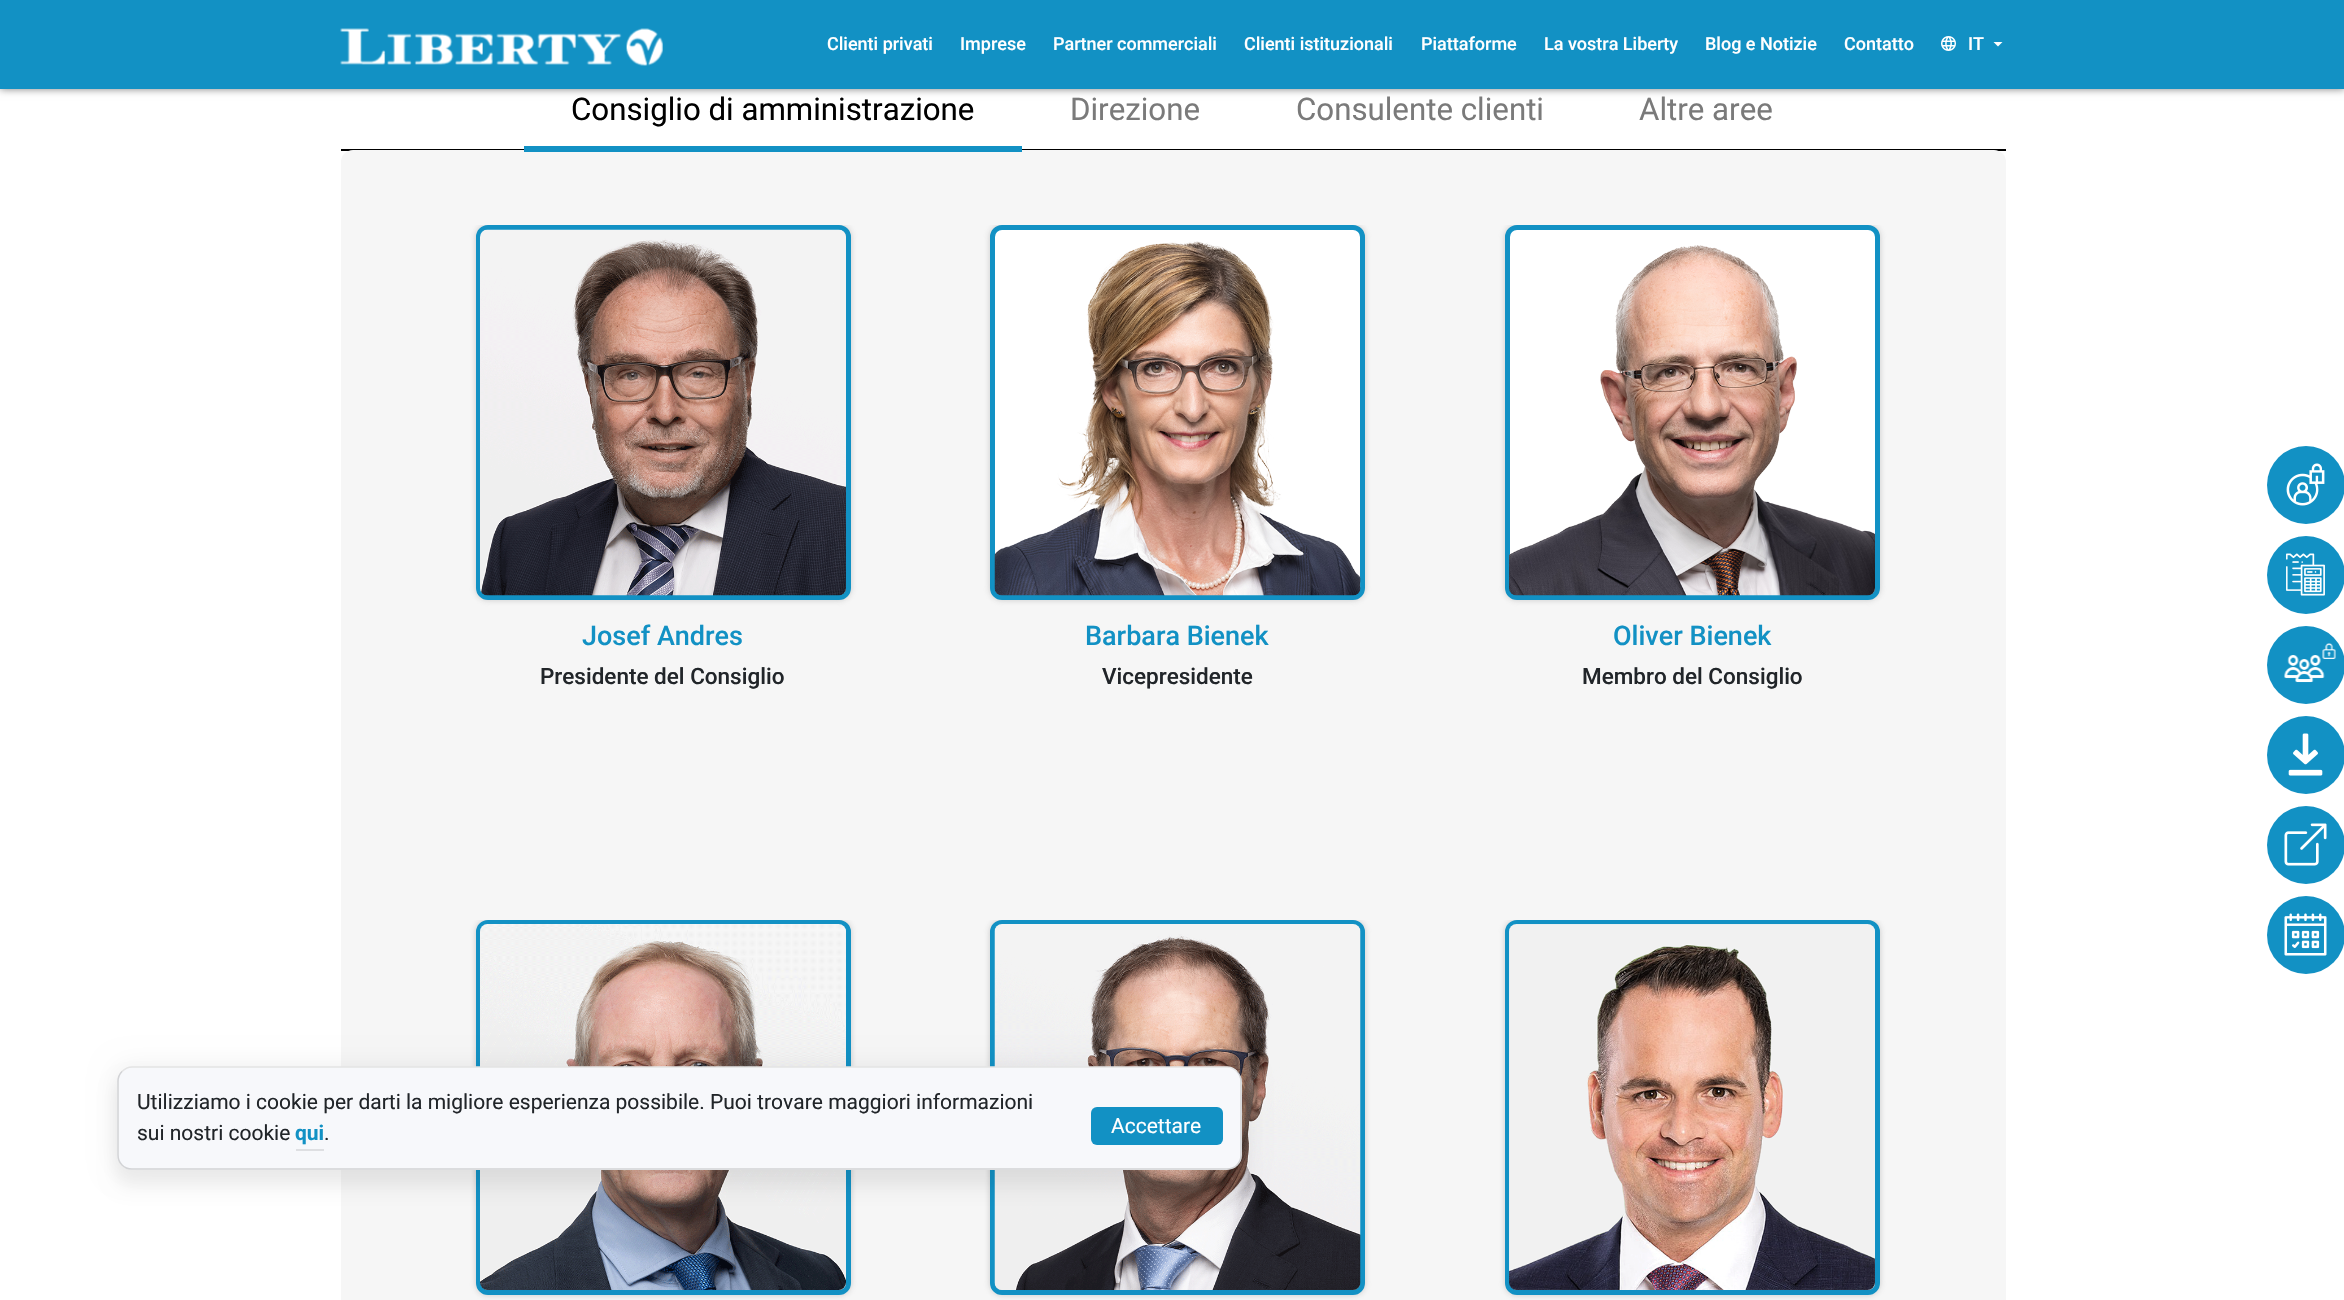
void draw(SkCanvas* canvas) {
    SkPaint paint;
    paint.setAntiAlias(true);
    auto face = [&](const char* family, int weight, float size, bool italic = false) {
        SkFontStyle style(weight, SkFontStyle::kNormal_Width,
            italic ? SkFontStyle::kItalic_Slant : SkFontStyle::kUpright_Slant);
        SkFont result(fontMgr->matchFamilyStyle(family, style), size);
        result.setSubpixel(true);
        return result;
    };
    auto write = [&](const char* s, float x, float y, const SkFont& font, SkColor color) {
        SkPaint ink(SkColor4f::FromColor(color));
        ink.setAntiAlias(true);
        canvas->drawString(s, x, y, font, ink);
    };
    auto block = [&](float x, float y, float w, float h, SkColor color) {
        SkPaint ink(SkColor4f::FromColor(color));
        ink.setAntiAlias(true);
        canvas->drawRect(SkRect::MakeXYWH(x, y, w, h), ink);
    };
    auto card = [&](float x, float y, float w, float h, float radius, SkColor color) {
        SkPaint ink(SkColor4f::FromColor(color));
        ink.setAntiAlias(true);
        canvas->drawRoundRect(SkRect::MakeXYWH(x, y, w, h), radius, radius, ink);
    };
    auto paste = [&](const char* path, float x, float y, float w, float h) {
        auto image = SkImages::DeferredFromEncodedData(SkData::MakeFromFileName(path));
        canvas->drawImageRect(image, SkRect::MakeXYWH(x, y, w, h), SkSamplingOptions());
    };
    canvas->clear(SK_ColorWHITE);
    paint.setColor(SkColorSetARGB(128, 0, 0, 0));
    paint.setMaskFilter(SkMaskFilter::MakeBlur(kNormal_SkBlurStyle, 4));
    canvas->drawRect(SkRect::MakeXYWH(0, 0, 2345, 89), paint);
    paint.setMaskFilter(nullptr);
    block(0, 0, 2344, 89, SkColorSetRGB(18, 145, 196));
    paste("pic1.png", 340, 28, 323, 38);
    auto kFont1 = face("Roboto", 500, 18);
    write("Clienti privati", 827, 50, kFont1, SK_ColorWHITE);
    write("Imprese", 960, 50, kFont1, SK_ColorWHITE);
    write("Partner commerciali", 1053, 50, kFont1, SK_ColorWHITE);
    write("Clienti istituzionali", 1244, 50, kFont1, SK_ColorWHITE);
    write("Piattaforme", 1421, 50, kFont1, SK_ColorWHITE);
    write("La vostra Liberty", 1544, 50, kFont1, SK_ColorWHITE);
    write("Blog e Notizie", 1705, 50, kFont1, SK_ColorWHITE);
    write("Contatto", 1844, 50, kFont1, SK_ColorWHITE);
    paste("pic2.png", 1941, 36, 15, 15);
    write("IT", 1968, 50, kFont1, SK_ColorWHITE);
    paint.setColor(SK_ColorWHITE);
    canvas->drawPath(SkPathBuilder().moveTo(1993.5f, 42).lineTo(2002.5f, 42).lineTo(1998, 46.5f).close().detach(), paint);
    paint.setColor(SkColorSetRGB(18, 145, 196));
    canvas->drawCircle(2306, 485, 39, paint);
    paste("pic3.png", 2286, 463, 39, 43);
    canvas->drawCircle(2306, 575, 39, paint);
    paste("pic4.png", 2286, 553, 39, 43);
    canvas->drawCircle(2306, 665, 39, paint);
    paste("pic5.png", 2284, 643, 52, 40);
    canvas->drawCircle(2306, 755, 39, paint);
    paste("pic6.png", 2288, 733, 35, 43);
    canvas->drawCircle(2306, 845, 39, paint);
    paste("pic7.png", 2284, 823, 43, 43);
    canvas->drawCircle(2306, 935, 39, paint);
    paste("pic8.png", 2284, 913, 43, 43);
    block(341, 149, 1665, 2, SK_ColorBLACK);
    card(341, 150, 1665, 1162, 12, SkColorSetRGB(246, 246, 246));
    block(524, 146, 498, 6, SkColorSetRGB(18, 145, 196));
    auto kFont2 = face("Roboto", 400, 31.25f);
    write("Consiglio di amministrazione", 571, 120, kFont2, SK_ColorBLACK);
    write("Direzione", 1070, 120, kFont2, SkColorSetRGB(122, 122, 122));
    write("Consulente clienti", 1296, 120, kFont2, SkColorSetRGB(122, 122, 122));
    write("Altre aree", 1639, 120, kFont2, SkColorSetRGB(122, 122, 122));
    canvas->save();
    canvas->clipRect(SkRect::MakeXYWH(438, 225, 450, 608));
    paint.setColor(SkColorSetARGB(128, 155, 155, 155));
    paint.setMaskFilter(SkMaskFilter::MakeBlur(kNormal_SkBlurStyle, 3));
    canvas->drawRoundRect(SkRect::MakeXYWH(476, 225, 375, 375), 12, 12, paint);
    paint.setMaskFilter(nullptr);
    canvas->restore();
    paint.setStyle(SkPaint::kStroke_Style);
    paint.setStrokeWidth(5);
    paint.setColor(SkColorSetRGB(18, 145, 196));
    canvas->drawRoundRect(SkRect::MakeXYWH(478.5f, 227.5f, 370, 370), 9.5f, 9.5f, paint);
    paste("pic9.png", 480, 229, 366, 367);
    auto kFont3 = face("Roboto", 500, 27);
    write("Josef Andres", 582, 645, kFont3, SkColorSetRGB(18, 145, 196));
    auto kFont4 = face("Roboto", 500, 22.5f);
    write("Presidente del Consiglio", 540, 684, kFont4, SkColorSetRGB(33, 37, 41));
    canvas->save();
    canvas->clipRect(SkRect::MakeXYWH(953, 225, 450, 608));
    paint.setStyle(SkPaint::kFill_Style);
    paint.setColor(SkColorSetARGB(128, 155, 155, 155));
    paint.setMaskFilter(SkMaskFilter::MakeBlur(kNormal_SkBlurStyle, 3));
    canvas->drawRoundRect(SkRect::MakeXYWH(990, 225, 375, 375), 12, 12, paint);
    paint.setMaskFilter(nullptr);
    canvas->restore();
    paint.setColor(SK_ColorWHITE);
    canvas->drawRoundRect(SkRect::MakeXYWH(992.5f, 227.5f, 370, 370), 9.5f, 9.5f, paint);
    paint.setStyle(SkPaint::kStroke_Style);
    paint.setColor(SkColorSetRGB(18, 145, 196));
    canvas->drawRoundRect(SkRect::MakeXYWH(992.5f, 227.5f, 370, 370), 9.5f, 9.5f, paint);
    paste("pic10.png", 994, 241, 367, 355);
    write("Barbara Bienek", 1085, 645, kFont3, SkColorSetRGB(18, 145, 196));
    write("Vicepresidente", 1102, 684, kFont4, SkColorSetRGB(33, 37, 41));
    canvas->save();
    canvas->clipRect(SkRect::MakeXYWH(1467, 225, 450, 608));
    paint.setStyle(SkPaint::kFill_Style);
    paint.setColor(SkColorSetARGB(128, 155, 155, 155));
    paint.setMaskFilter(SkMaskFilter::MakeBlur(kNormal_SkBlurStyle, 3));
    canvas->drawRoundRect(SkRect::MakeXYWH(1505, 225, 375, 375), 12, 12, paint);
    paint.setMaskFilter(nullptr);
    canvas->restore();
    paint.setColor(SK_ColorWHITE);
    canvas->drawRoundRect(SkRect::MakeXYWH(1507.5f, 227.5f, 370, 370), 9.5f, 9.5f, paint);
    paint.setStyle(SkPaint::kStroke_Style);
    paint.setColor(SkColorSetRGB(18, 145, 196));
    canvas->drawRoundRect(SkRect::MakeXYWH(1507.5f, 227.5f, 370, 370), 9.5f, 9.5f, paint);
    paste("pic11.png", 1509, 245, 366, 351);
    write("Oliver Bienek", 1613, 645, kFont3, SkColorSetRGB(18, 145, 196));
    write("Membro del Consiglio", 1582, 684, kFont4, SkColorSetRGB(33, 37, 41));
    canvas->save();
    canvas->clipRect(SkRect::MakeXYWH(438, 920, 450, 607));
    paint.setStyle(SkPaint::kFill_Style);
    paint.setColor(SkColorSetARGB(128, 155, 155, 155));
    paint.setMaskFilter(SkMaskFilter::MakeBlur(kNormal_SkBlurStyle, 3));
    canvas->drawRoundRect(SkRect::MakeXYWH(476, 920, 375, 375), 12, 12, paint);
    paint.setMaskFilter(nullptr);
    canvas->restore();
    paint.setColor(SK_ColorWHITE);
    canvas->drawRoundRect(SkRect::MakeXYWH(478.5f, 922.5f, 370, 370), 9.5f, 9.5f, paint);
    paint.setStyle(SkPaint::kStroke_Style);
    paint.setColor(SkColorSetRGB(18, 145, 196));
    canvas->drawRoundRect(SkRect::MakeXYWH(478.5f, 922.5f, 370, 370), 9.5f, 9.5f, paint);
    paste("pic12.png", 480, 924, 366, 366);
    canvas->save();
    canvas->clipRect(SkRect::MakeXYWH(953, 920, 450, 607));
    paint.setStyle(SkPaint::kFill_Style);
    paint.setColor(SkColorSetARGB(128, 155, 155, 155));
    paint.setMaskFilter(SkMaskFilter::MakeBlur(kNormal_SkBlurStyle, 3));
    canvas->drawRoundRect(SkRect::MakeXYWH(990, 920, 375, 375), 12, 12, paint);
    paint.setMaskFilter(nullptr);
    canvas->restore();
    paint.setStyle(SkPaint::kStroke_Style);
    paint.setColor(SkColorSetRGB(18, 145, 196));
    canvas->drawRoundRect(SkRect::MakeXYWH(992.5f, 922.5f, 370, 370), 9.5f, 9.5f, paint);
    paste("pic13.png", 994, 924, 367, 366);
    canvas->save();
    canvas->clipRect(SkRect::MakeXYWH(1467, 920, 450, 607));
    paint.setStyle(SkPaint::kFill_Style);
    paint.setColor(SkColorSetARGB(128, 155, 155, 155));
    paint.setMaskFilter(SkMaskFilter::MakeBlur(kNormal_SkBlurStyle, 3));
    canvas->drawRoundRect(SkRect::MakeXYWH(1505, 920, 375, 375), 12, 12, paint);
    paint.setMaskFilter(nullptr);
    canvas->restore();
    paint.setColor(SK_ColorWHITE);
    canvas->drawRoundRect(SkRect::MakeXYWH(1507.5f, 922.5f, 370, 370), 9.5f, 9.5f, paint);
    paint.setStyle(SkPaint::kStroke_Style);
    paint.setColor(SkColorSetRGB(18, 145, 196));
    canvas->drawRoundRect(SkRect::MakeXYWH(1507.5f, 922.5f, 370, 370), 9.5f, 9.5f, paint);
    paste("pic14.png", 1509, 924, 366, 366);
    paint.setStyle(SkPaint::kFill_Style);
    paint.setColor(SkColorSetARGB(13, 0, 0, 0));
    paint.setMaskFilter(SkMaskFilter::MakeBlur(kNormal_SkBlurStyle, 7.5f));
    canvas->drawRoundRect(SkRect::MakeXYWH(114, 1079, 1131, 109), 18, 18, paint);
    paint.setMaskFilter(nullptr);
    paint.setMaskFilter(SkMaskFilter::MakeBlur(kNormal_SkBlurStyle, 12));
    canvas->drawRoundRect(SkRect::MakeXYWH(114, 1064, 1131, 109), 18, 18, paint);
    paint.setMaskFilter(nullptr);
    card(117, 1067, 1125, 103, 15, SkColorSetRGB(247, 248, 251));
    paint.setStyle(SkPaint::kStroke_Style);
    paint.setStrokeWidth(1.5f);
    paint.setColor(SkColorSetRGB(228, 228, 228));
    canvas->drawPath(SkPathBuilder().moveTo(122, 1071.5f).cubicTo(124.5f, 1069, 128, 1067, 132, 1067).lineTo(1227, 1067).cubicTo(1231, 1067, 1234.5f, 1069, 1237, 1071.5f).detach(), paint);
    paint.setColor(SkColorSetARGB(38, 0, 0, 0));
    canvas->drawPath(SkPathBuilder().moveTo(1237, 1071.5f).cubicTo(1239.5f, 1074, 1241, 1077.5f, 1241, 1081.5f).lineTo(1241, 1155).cubicTo(1241, 1159, 1239.5f, 1162.5f, 1237, 1165).cubicTo(1234.5f, 1167.5f, 1231, 1169, 1227, 1169).lineTo(132, 1169).cubicTo(128, 1169, 124.5f, 1167.5f, 122, 1165).cubicTo(119.5f, 1162.5f, 118, 1159, 118, 1155).lineTo(118, 1081.5f).cubicTo(118, 1077.5f, 119.5f, 1074, 122, 1071.5f).detach(), paint);
    auto kFont5 = face("Roboto", 400, 21);
    write("Utilizziamo i cookie per darti la migliore esperienza possibile. Puoi trovare maggiori informazioni", 137, 1109, kFont5, SkColorSetRGB(33, 37, 41));
    write("sui nostri cookie", 137, 1140, kFont5, SkColorSetRGB(33, 37, 41));
    block(296, 1149, 28, 2, SkColorSetRGB(222, 223, 226));
    auto kFont6 = face("Roboto", 700, 21);
    write("qui", 295, 1140, kFont6, SkColorSetRGB(18, 145, 196));
    write(".", 324, 1140, kFont5, SkColorSetRGB(33, 37, 41));
    card(1091, 1107, 132, 38, 6, SkColorSetRGB(18, 145, 196));
    write("Accettare", 1111, 1133, kFont5, SK_ColorWHITE);
}
